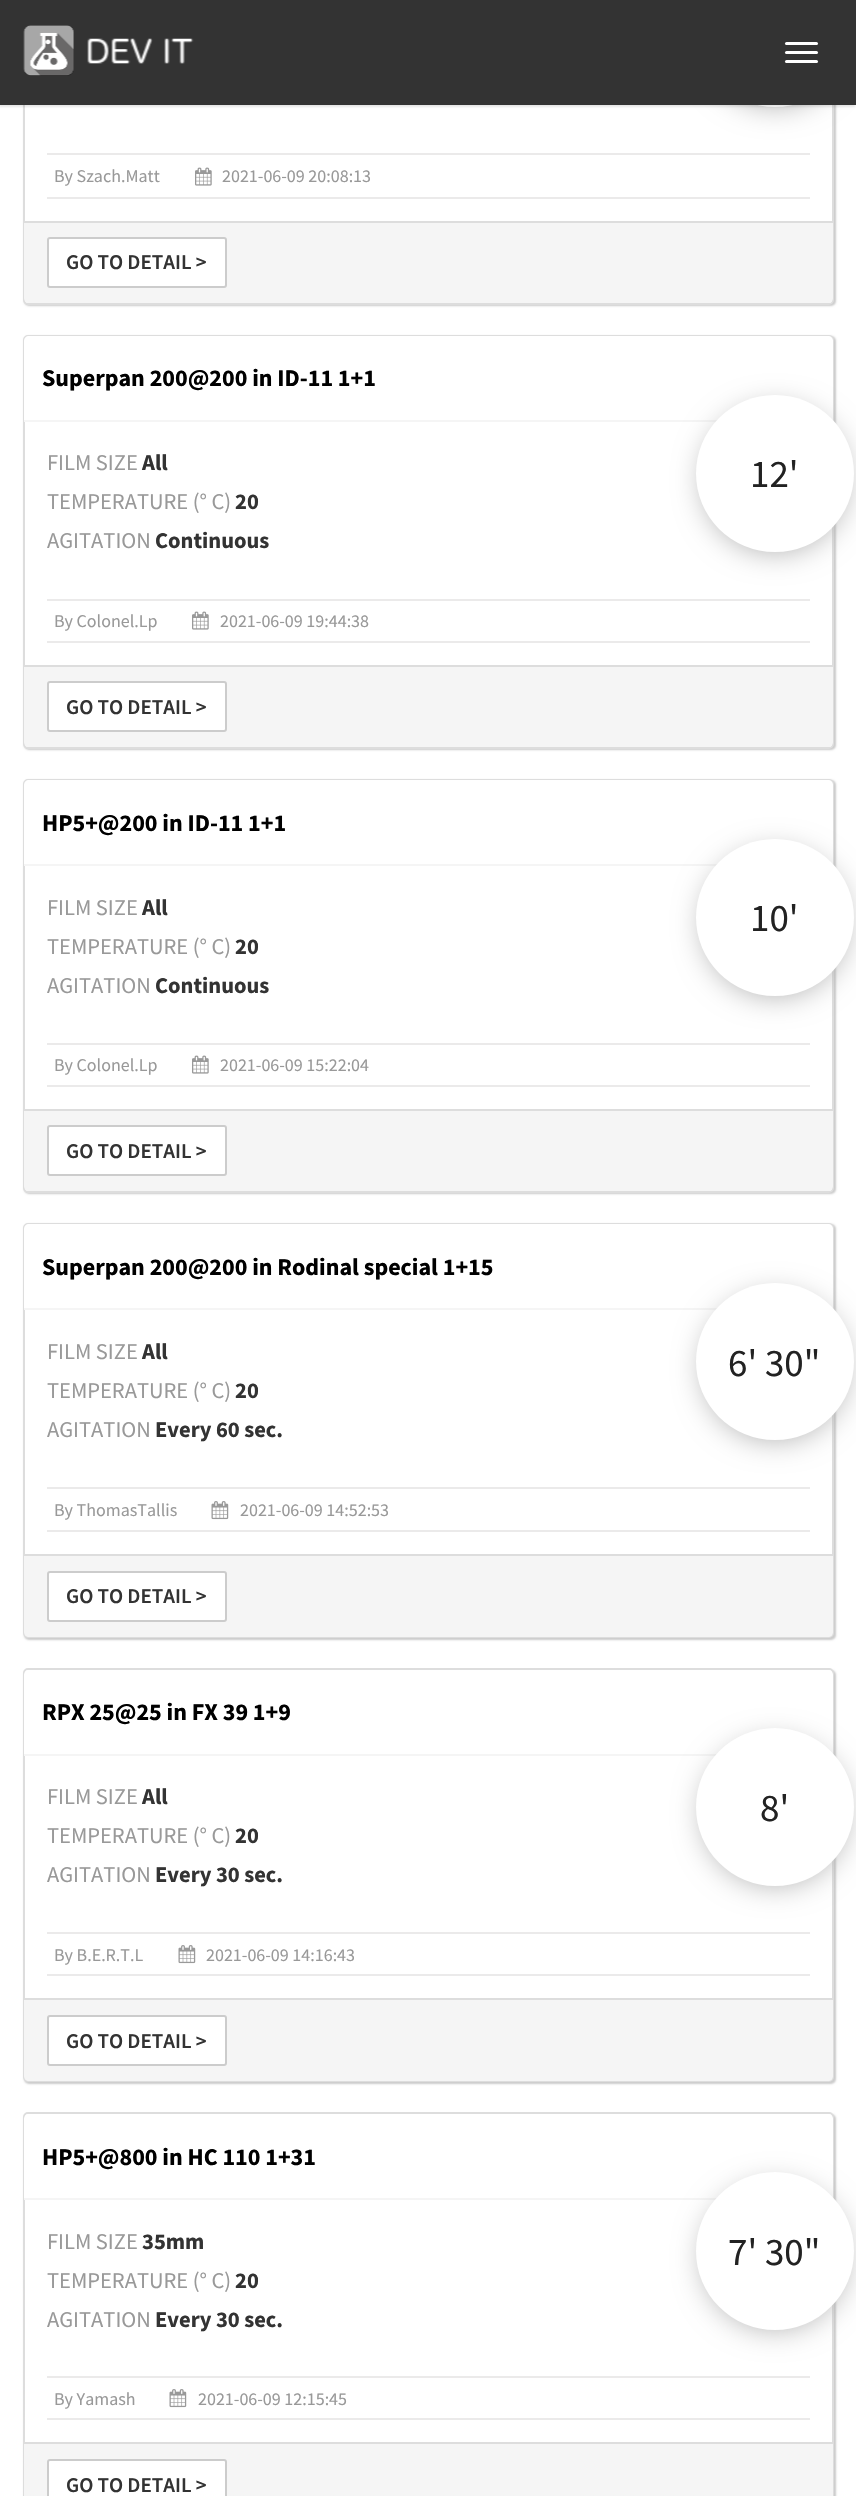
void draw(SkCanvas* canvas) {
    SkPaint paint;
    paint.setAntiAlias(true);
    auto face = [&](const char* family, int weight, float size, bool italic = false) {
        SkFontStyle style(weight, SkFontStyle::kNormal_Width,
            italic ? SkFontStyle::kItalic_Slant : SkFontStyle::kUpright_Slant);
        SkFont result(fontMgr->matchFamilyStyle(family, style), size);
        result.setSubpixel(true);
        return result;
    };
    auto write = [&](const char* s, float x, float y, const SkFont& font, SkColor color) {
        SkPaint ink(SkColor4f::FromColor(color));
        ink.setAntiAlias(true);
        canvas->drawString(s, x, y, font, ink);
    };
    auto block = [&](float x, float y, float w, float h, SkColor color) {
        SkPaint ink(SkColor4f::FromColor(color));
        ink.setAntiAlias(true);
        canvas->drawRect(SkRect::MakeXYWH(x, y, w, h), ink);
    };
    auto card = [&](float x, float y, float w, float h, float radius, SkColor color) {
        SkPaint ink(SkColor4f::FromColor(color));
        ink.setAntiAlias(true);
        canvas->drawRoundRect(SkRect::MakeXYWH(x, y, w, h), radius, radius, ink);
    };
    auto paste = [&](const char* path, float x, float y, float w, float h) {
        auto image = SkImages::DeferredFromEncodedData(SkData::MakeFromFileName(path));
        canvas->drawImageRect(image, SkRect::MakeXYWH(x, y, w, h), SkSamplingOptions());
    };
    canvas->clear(SK_ColorWHITE);
    paint.setColor(SkColorSetRGB(204, 204, 204));
    paint.setMaskFilter(SkMaskFilter::MakeBlur(kNormal_SkBlurStyle, 1));
    canvas->drawRoundRect(SkRect::MakeXYWH(24, -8, 812, 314), 5, 5, paint);
    paint.setMaskFilter(nullptr);
    paint.setColor(SK_ColorWHITE);
    canvas->drawRoundRect(SkRect::MakeXYWH(24, -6, 809, 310), 4, 4, paint);
    paint.setStyle(SkPaint::kStroke_Style);
    paint.setStrokeWidth(2);
    paint.setColor(SkColorSetRGB(221, 221, 221));
    canvas->drawRoundRect(SkRect::MakeXYWH(24, -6, 809, 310), 4, 4, paint);
    paint.setStyle(SkPaint::kFill_Style);
    paint.setColor(SkColorSetRGB(170, 170, 170));
    paint.setMaskFilter(SkMaskFilter::MakeBlur(kNormal_SkBlurStyle, 15));
    canvas->drawRoundRect(SkRect::MakeXYWH(704, -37, 142, 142), 71, 71, paint);
    paint.setMaskFilter(nullptr);
    paint.setColor(SK_ColorWHITE);
    canvas->drawCircle(775, 28, 79, paint);
    paint.setColor(SkColorSetARGB(26, 0, 0, 0));
    paint.setMaskFilter(SkMaskFilter::MakeBlur(kNormal_SkBlurStyle, 1));
    canvas->drawRect(SkRect::MakeXYWH(-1, 2, 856, 105), paint);
    paint.setMaskFilter(nullptr);
    block(0, 0, 856, 105, SkColorSetRGB(51, 51, 51));
    paste("pic1.png", 23, 25, 51, 51);
    paste("pic2.png", 87, 38, 107, 26);
    card(785, 42, 33, 3, 1.5f, SK_ColorWHITE);
    card(785, 51, 33, 3, 1.5f, SK_ColorWHITE);
    card(785, 60, 33, 3, 1.5f, SK_ColorWHITE);
    block(47, 153, 763, 2, SkColorSetRGB(235, 234, 234));
    block(47, 197, 763, 2, SkColorSetRGB(235, 234, 234));
    auto kFont1 = face("Source Sans Pro", 400, 18);
    write("By Szach.Matt", 54, 182, kFont1, SkColorSetRGB(153, 153, 153));
    paste("pic3.png", 195, 167, 17, 19);
    write("2021-06-09 20:08:13", 222, 182, kFont1, SkColorSetRGB(153, 153, 153));
    paint.setColor(SkColorSetRGB(245, 245, 245));
    canvas->drawPath(SkPathBuilder().moveTo(24, 221).lineTo(833, 221).lineTo(833, 298).cubicTo(833, 301, 831, 303, 828, 303).lineTo(29, 303).cubicTo(26, 303, 24, 301, 24, 298).close().detach(), paint);
    block(24, 221, 809, 2, SkColorSetRGB(221, 221, 221));
    paint.setColor(SK_ColorWHITE);
    canvas->drawRoundRect(SkRect::MakeXYWH(48, 238, 178, 49), 2, 2, paint);
    paint.setStyle(SkPaint::kStroke_Style);
    paint.setColor(SkColorSetRGB(204, 204, 204));
    canvas->drawRoundRect(SkRect::MakeXYWH(48, 238, 178, 49), 2, 2, paint);
    auto kFont2 = face("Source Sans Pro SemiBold", 600, 21);
    write("GO TO DETAIL >", 66, 269, kFont2, SkColorSetRGB(51, 51, 51));
    paint.setStyle(SkPaint::kFill_Style);
    paint.setMaskFilter(SkMaskFilter::MakeBlur(kNormal_SkBlurStyle, 1));
    canvas->drawRoundRect(SkRect::MakeXYWH(24, 336, 812, 414), 5, 5, paint);
    paint.setMaskFilter(nullptr);
    paint.setColor(SK_ColorWHITE);
    canvas->drawRoundRect(SkRect::MakeXYWH(24, 336, 809, 412), 4, 4, paint);
    paint.setStyle(SkPaint::kStroke_Style);
    paint.setColor(SkColorSetRGB(221, 221, 221));
    canvas->drawRoundRect(SkRect::MakeXYWH(24, 336, 809, 412), 4, 4, paint);
    paint.setStyle(SkPaint::kFill_Style);
    paint.setColor(SK_ColorWHITE);
    canvas->drawPath(SkPathBuilder().moveTo(29, 336).lineTo(828, 336).cubicTo(831, 336, 833, 338, 833, 341).lineTo(833, 422).lineTo(24, 422).lineTo(24, 341).cubicTo(24, 338, 26, 336, 29, 336).close().detach(), paint);
    block(24, 420, 693, 2, SkColorSetRGB(245, 245, 245));
    auto kFont3 = face("Source Sans Pro", 700, 24);
    write("Superpan 200@200 in ID-11 1+1", 42, 386, kFont3, SK_ColorBLACK);
    auto kFont4 = face("Source Sans Pro", 400, 22.5f);
    write("FILM SIZE", 47, 470, kFont4, SkColorSetRGB(153, 153, 153));
    auto kFont5 = face("Source Sans Pro", 700, 22.5f);
    write("All", 142, 470, kFont5, SkColorSetRGB(51, 51, 51));
    write("TEMPERATURE (° C)", 47, 509, kFont4, SkColorSetRGB(153, 153, 153));
    write("20", 235, 509, kFont5, SkColorSetRGB(51, 51, 51));
    write("AGITATION", 47, 548, kFont4, SkColorSetRGB(153, 153, 153));
    write("Continuous", 155, 548, kFont5, SkColorSetRGB(51, 51, 51));
    block(47, 599, 763, 2, SkColorSetRGB(235, 234, 234));
    block(47, 641, 763, 2, SkColorSetRGB(235, 234, 234));
    write("By Colonel.Lp", 54, 627, kFont1, SkColorSetRGB(153, 153, 153));
    paste("pic3.png", 192, 611, 17, 19);
    write("2021-06-09 19:44:38", 220, 627, kFont1, SkColorSetRGB(153, 153, 153));
    paint.setColor(SkColorSetRGB(245, 245, 245));
    canvas->drawPath(SkPathBuilder().moveTo(24, 665).lineTo(833, 665).lineTo(833, 742).cubicTo(833, 745, 831, 747, 828, 747).lineTo(29, 747).cubicTo(26, 747, 24, 745, 24, 742).close().detach(), paint);
    block(24, 665, 809, 2, SkColorSetRGB(221, 221, 221));
    paint.setColor(SK_ColorWHITE);
    canvas->drawRoundRect(SkRect::MakeXYWH(48, 682, 178, 49), 2, 2, paint);
    paint.setStyle(SkPaint::kStroke_Style);
    paint.setColor(SkColorSetRGB(204, 204, 204));
    canvas->drawRoundRect(SkRect::MakeXYWH(48, 682, 178, 49), 2, 2, paint);
    write("GO TO DETAIL >", 66, 714, kFont2, SkColorSetRGB(51, 51, 51));
    paint.setStyle(SkPaint::kFill_Style);
    paint.setColor(SkColorSetRGB(170, 170, 170));
    paint.setMaskFilter(SkMaskFilter::MakeBlur(kNormal_SkBlurStyle, 15));
    canvas->drawRoundRect(SkRect::MakeXYWH(704, 408, 142, 143), 71, 71, paint);
    paint.setMaskFilter(nullptr);
    card(696, 395, 158, 157, 78.5f, SK_ColorWHITE);
    auto kFont6 = face("Source Sans Pro", 400, 39);
    write("12'", 750, 487, kFont6, SkColorSetRGB(34, 34, 34));
    paint.setColor(SkColorSetRGB(204, 204, 204));
    paint.setMaskFilter(SkMaskFilter::MakeBlur(kNormal_SkBlurStyle, 1));
    canvas->drawRoundRect(SkRect::MakeXYWH(24, 780, 812, 414), 5, 5, paint);
    paint.setMaskFilter(nullptr);
    paint.setColor(SK_ColorWHITE);
    canvas->drawRoundRect(SkRect::MakeXYWH(24, 780, 809, 412), 4, 4, paint);
    paint.setStyle(SkPaint::kStroke_Style);
    paint.setColor(SkColorSetRGB(221, 221, 221));
    canvas->drawRoundRect(SkRect::MakeXYWH(24, 780, 809, 412), 4, 4, paint);
    paint.setStyle(SkPaint::kFill_Style);
    paint.setColor(SK_ColorWHITE);
    canvas->drawPath(SkPathBuilder().moveTo(29, 780).lineTo(828, 780).cubicTo(831, 780, 833, 782, 833, 785).lineTo(833, 866).lineTo(24, 866).lineTo(24, 785).cubicTo(24, 782, 26, 780, 29, 780).close().detach(), paint);
    block(24, 864, 693, 2, SkColorSetRGB(245, 245, 245));
    write("HP5+@200 in ID-11 1+1", 42, 831, kFont3, SK_ColorBLACK);
    write("FILM SIZE", 47, 915, kFont4, SkColorSetRGB(153, 153, 153));
    write("All", 142, 915, kFont5, SkColorSetRGB(51, 51, 51));
    write("TEMPERATURE (° C)", 47, 954, kFont4, SkColorSetRGB(153, 153, 153));
    write("20", 235, 954, kFont5, SkColorSetRGB(51, 51, 51));
    write("AGITATION", 47, 993, kFont4, SkColorSetRGB(153, 153, 153));
    write("Continuous", 155, 993, kFont5, SkColorSetRGB(51, 51, 51));
    block(47, 1043, 763, 2, SkColorSetRGB(235, 234, 234));
    block(47, 1085, 763, 2, SkColorSetRGB(235, 234, 234));
    write("By Colonel.Lp", 54, 1071, kFont1, SkColorSetRGB(153, 153, 153));
    paste("pic3.png", 192, 1055, 17, 19);
    write("2021-06-09 15:22:04", 220, 1071, kFont1, SkColorSetRGB(153, 153, 153));
    paint.setColor(SkColorSetRGB(245, 245, 245));
    canvas->drawPath(SkPathBuilder().moveTo(24, 1109).lineTo(833, 1109).lineTo(833, 1186).cubicTo(833, 1189, 831, 1191, 828, 1191).lineTo(29, 1191).cubicTo(26, 1191, 24, 1189, 24, 1186).close().detach(), paint);
    block(24, 1109, 809, 2, SkColorSetRGB(221, 221, 221));
    paint.setColor(SK_ColorWHITE);
    canvas->drawRoundRect(SkRect::MakeXYWH(48, 1126, 178, 49), 2, 2, paint);
    paint.setStyle(SkPaint::kStroke_Style);
    paint.setColor(SkColorSetRGB(204, 204, 204));
    canvas->drawRoundRect(SkRect::MakeXYWH(48, 1126, 178, 49), 2, 2, paint);
    write("GO TO DETAIL >", 66, 1158, kFont2, SkColorSetRGB(51, 51, 51));
    paint.setStyle(SkPaint::kFill_Style);
    paint.setColor(SkColorSetRGB(170, 170, 170));
    paint.setMaskFilter(SkMaskFilter::MakeBlur(kNormal_SkBlurStyle, 15));
    canvas->drawRoundRect(SkRect::MakeXYWH(704, 852, 142, 143), 71, 71, paint);
    paint.setMaskFilter(nullptr);
    card(696, 839, 158, 157, 78.5f, SK_ColorWHITE);
    write("10'", 750, 931, kFont6, SkColorSetRGB(34, 34, 34));
    paint.setColor(SkColorSetRGB(204, 204, 204));
    paint.setMaskFilter(SkMaskFilter::MakeBlur(kNormal_SkBlurStyle, 1));
    canvas->drawRoundRect(SkRect::MakeXYWH(24, 1224, 812, 416), 5, 5, paint);
    paint.setMaskFilter(nullptr);
    paint.setColor(SK_ColorWHITE);
    canvas->drawRoundRect(SkRect::MakeXYWH(24, 1224, 809, 413), 4, 4, paint);
    paint.setStyle(SkPaint::kStroke_Style);
    paint.setColor(SkColorSetRGB(221, 221, 221));
    canvas->drawRoundRect(SkRect::MakeXYWH(24, 1224, 809, 413), 4, 4, paint);
    paint.setStyle(SkPaint::kFill_Style);
    paint.setColor(SK_ColorWHITE);
    canvas->drawPath(SkPathBuilder().moveTo(29, 1224).lineTo(828, 1224).cubicTo(831, 1224, 833, 1226, 833, 1229).lineTo(833, 1310).lineTo(24, 1310).lineTo(24, 1229).cubicTo(24, 1226, 26, 1224, 29, 1224).close().detach(), paint);
    block(24, 1308, 693, 2, SkColorSetRGB(245, 245, 245));
    write("Superpan 200@200 in Rodinal special 1+15", 42, 1275, kFont3, SK_ColorBLACK);
    write("FILM SIZE", 47, 1359, kFont4, SkColorSetRGB(153, 153, 153));
    write("All", 142, 1359, kFont5, SkColorSetRGB(51, 51, 51));
    write("TEMPERATURE (° C)", 47, 1398, kFont4, SkColorSetRGB(153, 153, 153));
    write("20", 235, 1398, kFont5, SkColorSetRGB(51, 51, 51));
    write("AGITATION", 47, 1437, kFont4, SkColorSetRGB(153, 153, 153));
    write("Every 60 sec.", 155, 1437, kFont5, SkColorSetRGB(51, 51, 51));
    block(47, 1487, 763, 2, SkColorSetRGB(235, 234, 234));
    block(47, 1530, 763, 2, SkColorSetRGB(235, 234, 234));
    write("By ThomasTallis", 54, 1516, kFont1, SkColorSetRGB(153, 153, 153));
    paste("pic4.png", 211, 1501, 18, 19);
    write("2021-06-09 14:52:53", 240, 1516, kFont1, SkColorSetRGB(153, 153, 153));
    paint.setColor(SkColorSetRGB(245, 245, 245));
    canvas->drawPath(SkPathBuilder().moveTo(24, 1554).lineTo(833, 1554).lineTo(833, 1632).cubicTo(833, 1635, 831, 1637, 828, 1637).lineTo(29, 1637).cubicTo(26, 1637, 24, 1635, 24, 1632).close().detach(), paint);
    block(24, 1554, 809, 2, SkColorSetRGB(221, 221, 221));
    paint.setColor(SK_ColorWHITE);
    canvas->drawRoundRect(SkRect::MakeXYWH(48, 1572, 178, 49), 2, 2, paint);
    paint.setStyle(SkPaint::kStroke_Style);
    paint.setColor(SkColorSetRGB(204, 204, 204));
    canvas->drawRoundRect(SkRect::MakeXYWH(48, 1572, 178, 49), 2, 2, paint);
    write("GO TO DETAIL >", 66, 1603, kFont2, SkColorSetRGB(51, 51, 51));
    paint.setStyle(SkPaint::kFill_Style);
    paint.setColor(SkColorSetRGB(170, 170, 170));
    paint.setMaskFilter(SkMaskFilter::MakeBlur(kNormal_SkBlurStyle, 15));
    canvas->drawRoundRect(SkRect::MakeXYWH(704, 1296, 142, 143), 71, 71, paint);
    paint.setMaskFilter(nullptr);
    card(696, 1283, 158, 157, 78.5f, SK_ColorWHITE);
    write("6' 30\"", 728, 1376, kFont6, SkColorSetRGB(34, 34, 34));
    paint.setColor(SkColorSetRGB(204, 204, 204));
    paint.setMaskFilter(SkMaskFilter::MakeBlur(kNormal_SkBlurStyle, 1));
    canvas->drawRoundRect(SkRect::MakeXYWH(24, 1670, 812, 414), 5, 5, paint);
    paint.setMaskFilter(nullptr);
    paint.setColor(SK_ColorWHITE);
    canvas->drawRoundRect(SkRect::MakeXYWH(24, 1669, 809, 412), 4, 4, paint);
    paint.setStyle(SkPaint::kStroke_Style);
    paint.setColor(SkColorSetRGB(221, 221, 221));
    canvas->drawRoundRect(SkRect::MakeXYWH(24, 1669, 809, 412), 4, 4, paint);
    paint.setStyle(SkPaint::kFill_Style);
    paint.setColor(SK_ColorWHITE);
    canvas->drawPath(SkPathBuilder().moveTo(29, 1670).lineTo(828, 1670).cubicTo(831, 1670, 833, 1672, 833, 1675).lineTo(833, 1755).lineTo(24, 1755).lineTo(24, 1675).cubicTo(24, 1672, 26, 1670, 29, 1670).close().detach(), paint);
    block(24, 1754, 693, 2, SkColorSetRGB(245, 245, 245));
    write("RPX 25@25 in FX 39 1+9", 42, 1720, kFont3, SK_ColorBLACK);
    write("FILM SIZE", 47, 1804, kFont4, SkColorSetRGB(153, 153, 153));
    write("All", 142, 1804, kFont5, SkColorSetRGB(51, 51, 51));
    write("TEMPERATURE (° C)", 47, 1843, kFont4, SkColorSetRGB(153, 153, 153));
    write("20", 235, 1843, kFont5, SkColorSetRGB(51, 51, 51));
    write("AGITATION", 47, 1882, kFont4, SkColorSetRGB(153, 153, 153));
    write("Every 30 sec.", 155, 1882, kFont5, SkColorSetRGB(51, 51, 51));
    block(47, 1932, 763, 2, SkColorSetRGB(235, 234, 234));
    block(47, 1974, 763, 2, SkColorSetRGB(235, 234, 234));
    write("By B.E.R.T.L", 54, 1961, kFont1, SkColorSetRGB(153, 153, 153));
    paste("pic4.png", 178, 1945, 18, 19);
    write("2021-06-09 14:16:43", 206, 1961, kFont1, SkColorSetRGB(153, 153, 153));
    paint.setColor(SkColorSetRGB(245, 245, 245));
    canvas->drawPath(SkPathBuilder().moveTo(24, 1998).lineTo(833, 1998).lineTo(833, 2076).cubicTo(833, 2079, 831, 2081, 828, 2081).lineTo(29, 2081).cubicTo(26, 2081, 24, 2079, 24, 2076).close().detach(), paint);
    block(24, 1998, 809, 2, SkColorSetRGB(221, 221, 221));
    paint.setColor(SK_ColorWHITE);
    canvas->drawRoundRect(SkRect::MakeXYWH(48, 2016, 178, 49), 2, 2, paint);
    paint.setStyle(SkPaint::kStroke_Style);
    paint.setColor(SkColorSetRGB(204, 204, 204));
    canvas->drawRoundRect(SkRect::MakeXYWH(48, 2016, 178, 49), 2, 2, paint);
    write("GO TO DETAIL >", 66, 2048, kFont2, SkColorSetRGB(51, 51, 51));
    paint.setStyle(SkPaint::kFill_Style);
    paint.setColor(SkColorSetRGB(170, 170, 170));
    paint.setMaskFilter(SkMaskFilter::MakeBlur(kNormal_SkBlurStyle, 15));
    canvas->drawRoundRect(SkRect::MakeXYWH(704, 1742, 142, 142), 71, 71, paint);
    paint.setMaskFilter(nullptr);
    paint.setColor(SK_ColorWHITE);
    canvas->drawCircle(775, 1807, 79, paint);
    write("8'", 760, 1821, kFont6, SkColorSetRGB(34, 34, 34));
    paint.setColor(SkColorSetRGB(204, 204, 204));
    paint.setMaskFilter(SkMaskFilter::MakeBlur(kNormal_SkBlurStyle, 1));
    canvas->drawRoundRect(SkRect::MakeXYWH(24, 2114, 812, 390), 5, 5, paint);
    paint.setMaskFilter(nullptr);
    paint.setColor(SK_ColorWHITE);
    canvas->drawRoundRect(SkRect::MakeXYWH(24, 2113, 809, 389), 4, 4, paint);
    paint.setStyle(SkPaint::kStroke_Style);
    paint.setColor(SkColorSetRGB(221, 221, 221));
    canvas->drawRoundRect(SkRect::MakeXYWH(24, 2113, 809, 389), 4, 4, paint);
    paint.setStyle(SkPaint::kFill_Style);
    paint.setColor(SK_ColorWHITE);
    canvas->drawPath(SkPathBuilder().moveTo(29, 2114).lineTo(828, 2114).cubicTo(831, 2114, 833, 2116, 833, 2119).lineTo(833, 2199).lineTo(24, 2199).lineTo(24, 2119).cubicTo(24, 2116, 26, 2114, 29, 2114).close().detach(), paint);
    block(24, 2198, 693, 2, SkColorSetRGB(245, 245, 245));
    write("HP5+@800 in HC 110 1+31", 42, 2165, kFont3, SK_ColorBLACK);
    write("FILM SIZE", 47, 2249, kFont4, SkColorSetRGB(153, 153, 153));
    write("35mm", 142, 2249, kFont5, SkColorSetRGB(51, 51, 51));
    write("TEMPERATURE (° C)", 47, 2288, kFont4, SkColorSetRGB(153, 153, 153));
    write("20", 235, 2288, kFont5, SkColorSetRGB(51, 51, 51));
    write("AGITATION", 47, 2327, kFont4, SkColorSetRGB(153, 153, 153));
    write("Every 30 sec.", 155, 2327, kFont5, SkColorSetRGB(51, 51, 51));
    block(47, 2376, 763, 2, SkColorSetRGB(235, 234, 234));
    block(47, 2418, 763, 2, SkColorSetRGB(235, 234, 234));
    write("By Yamash", 54, 2405, kFont1, SkColorSetRGB(153, 153, 153));
    paste("pic4.png", 169, 2389, 18, 19);
    write("2021-06-09 12:15:45", 198, 2405, kFont1, SkColorSetRGB(153, 153, 153));
    block(24, 2444, 809, 52, SkColorSetRGB(245, 245, 245));
    block(24, 2442, 809, 2, SkColorSetRGB(221, 221, 221));
    canvas->drawRoundRect(SkRect::MakeXYWH(48, 2460, 178, 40), 2, 2, paint);
    paint.setStyle(SkPaint::kStroke_Style);
    paint.setColor(SkColorSetRGB(204, 204, 204));
    canvas->drawRoundRect(SkRect::MakeXYWH(48, 2460, 178, 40), 2, 2, paint);
    write("GO TO DETAIL >", 66, 2492, kFont2, SkColorSetRGB(51, 51, 51));
    paint.setStyle(SkPaint::kFill_Style);
    paint.setColor(SkColorSetRGB(170, 170, 170));
    paint.setMaskFilter(SkMaskFilter::MakeBlur(kNormal_SkBlurStyle, 15));
    canvas->drawRoundRect(SkRect::MakeXYWH(704, 2186, 142, 142), 71, 71, paint);
    paint.setMaskFilter(nullptr);
    paint.setColor(SK_ColorWHITE);
    canvas->drawCircle(775, 2251, 79, paint);
    write("7' 30\"", 728, 2265, kFont6, SkColorSetRGB(34, 34, 34));
}
